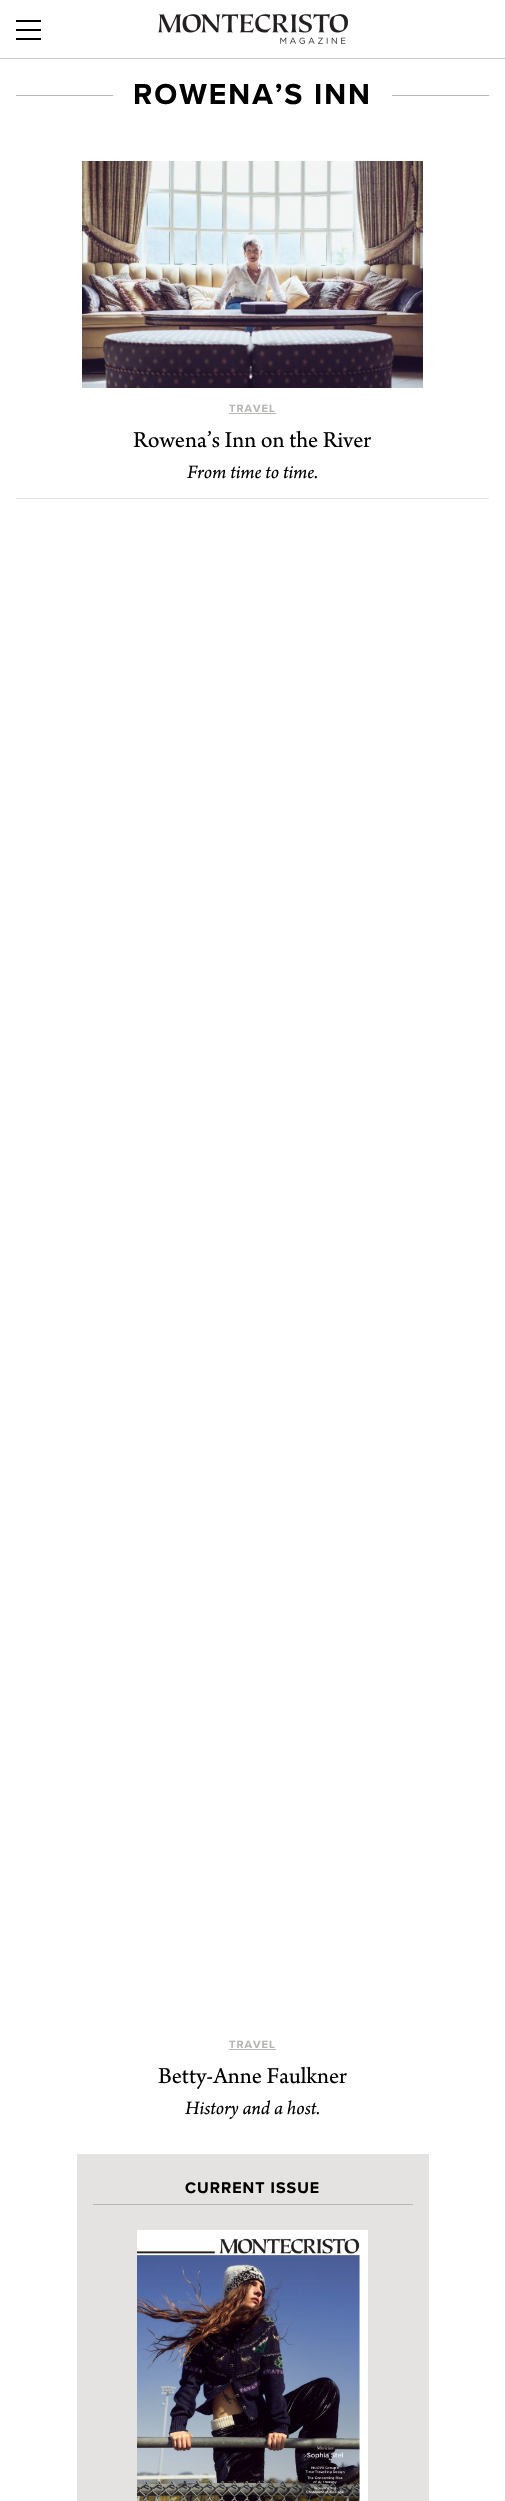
void draw(SkCanvas* canvas) {
    SkPaint paint;
    paint.setAntiAlias(true);
    auto face = [&](const char* family, int weight, float size, bool italic = false) {
        SkFontStyle style(weight, SkFontStyle::kNormal_Width,
            italic ? SkFontStyle::kItalic_Slant : SkFontStyle::kUpright_Slant);
        SkFont result(fontMgr->matchFamilyStyle(family, style), size);
        result.setSubpixel(true);
        return result;
    };
    auto write = [&](const char* s, float x, float y, const SkFont& font, SkColor color) {
        SkPaint ink(SkColor4f::FromColor(color));
        ink.setAntiAlias(true);
        canvas->drawString(s, x, y, font, ink);
    };
    auto writeSpaced = [&](const char* s, float x, float y, const SkFont& font, const SkPaint& ink, float letter, float word) {
        std::vector<SkGlyphID> glyphs(font.countText(s, strlen(s), SkTextEncoding::kUTF8));
        std::vector<float> xs(glyphs.size());
        font.textToGlyphs(s, strlen(s), SkTextEncoding::kUTF8, glyphs);
        font.getXPos(glyphs, xs, x);
        float extra = 0;
        for (size_t i = 0; i < glyphs.size(); i++) {
            xs[i] += extra;
            extra += letter + word * (glyphs[i] == font.unicharToGlyph(' '));
        }
        canvas->drawTextBlob(SkTextBlob::MakeFromPosHGlyphs(glyphs, xs, y, font), 0, 0, ink);
    };
    auto block = [&](float x, float y, float w, float h, SkColor color) {
        SkPaint ink(SkColor4f::FromColor(color));
        ink.setAntiAlias(true);
        canvas->drawRect(SkRect::MakeXYWH(x, y, w, h), ink);
    };
    auto paste = [&](const char* path, float x, float y, float w, float h) {
        auto image = SkImages::DeferredFromEncodedData(SkData::MakeFromFileName(path));
        canvas->drawImageRect(image, SkRect::MakeXYWH(x, y, w, h), SkSamplingOptions());
    };
    canvas->clear(SK_ColorWHITE);
    block(0, 58, 505, 1, SkColorSetRGB(204, 204, 204));
    block(16, 20, 25, 2, SK_ColorBLACK);
    block(16, 29, 25, 2, SK_ColorBLACK);
    block(16, 38, 25, 2, SK_ColorBLACK);
    paste("pic1.png", 158, 14, 190, 30);
    block(16, 95, 473, 1, SkColorSetRGB(184, 183, 180));
    block(113, 95, 279, 1, SK_ColorWHITE);
    auto kFont1 = face("Proxima Nova", 700, 30);
    paint.setColor(SK_ColorBLACK);
    writeSpaced("ROWENA’S INN", 133, 104, kFont1, paint, 2, 0);
    paste("pic2.png", 82, 161, 341, 227);
    auto kFont2 = face("Proxima Nova", 700, 11);
    paint.setColor(SkColorSetRGB(184, 183, 180));
    writeSpaced("TRAVEL", 229, 412, kFont2, paint, 1, 0);
    block(229, 413, 47, 1, SkColorSetRGB(184, 183, 180));
    auto kFont3 = face("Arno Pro", 400, 24);
    write("Rowena’s Inn on the River", 133, 447, kFont3, SK_ColorBLACK);
    auto kFont4 = face("Arno Pro", 400, 20, true);
    write("From time to time.", 187, 478, kFont4, SK_ColorBLACK);
    block(16, 498, 473, 1, SkColorSetRGB(229, 227, 225));
    writeSpaced("TRAVEL", 229, 2048, kFont2, paint, 1, 0);
    block(229, 2049, 47, 1, SkColorSetRGB(184, 183, 180));
    write("Betty-Anne Faulkner", 158, 2083, kFont3, SK_ColorBLACK);
    write("History and a host.", 185, 2114, kFont4, SK_ColorBLACK);
    block(77, 2154, 352, 347, SkColorSetRGB(229, 227, 225));
    block(93, 2204, 320, 1, SkColorSetRGB(184, 183, 180));
    auto kFont5 = face("Proxima Nova", 700, 16);
    paint.setColor(SK_ColorBLACK);
    writeSpaced("CURRENT ISSUE", 185, 2193, kFont5, paint, 1, 0);
    paste("pic3.png", 137, 2230, 231, 271);
}
